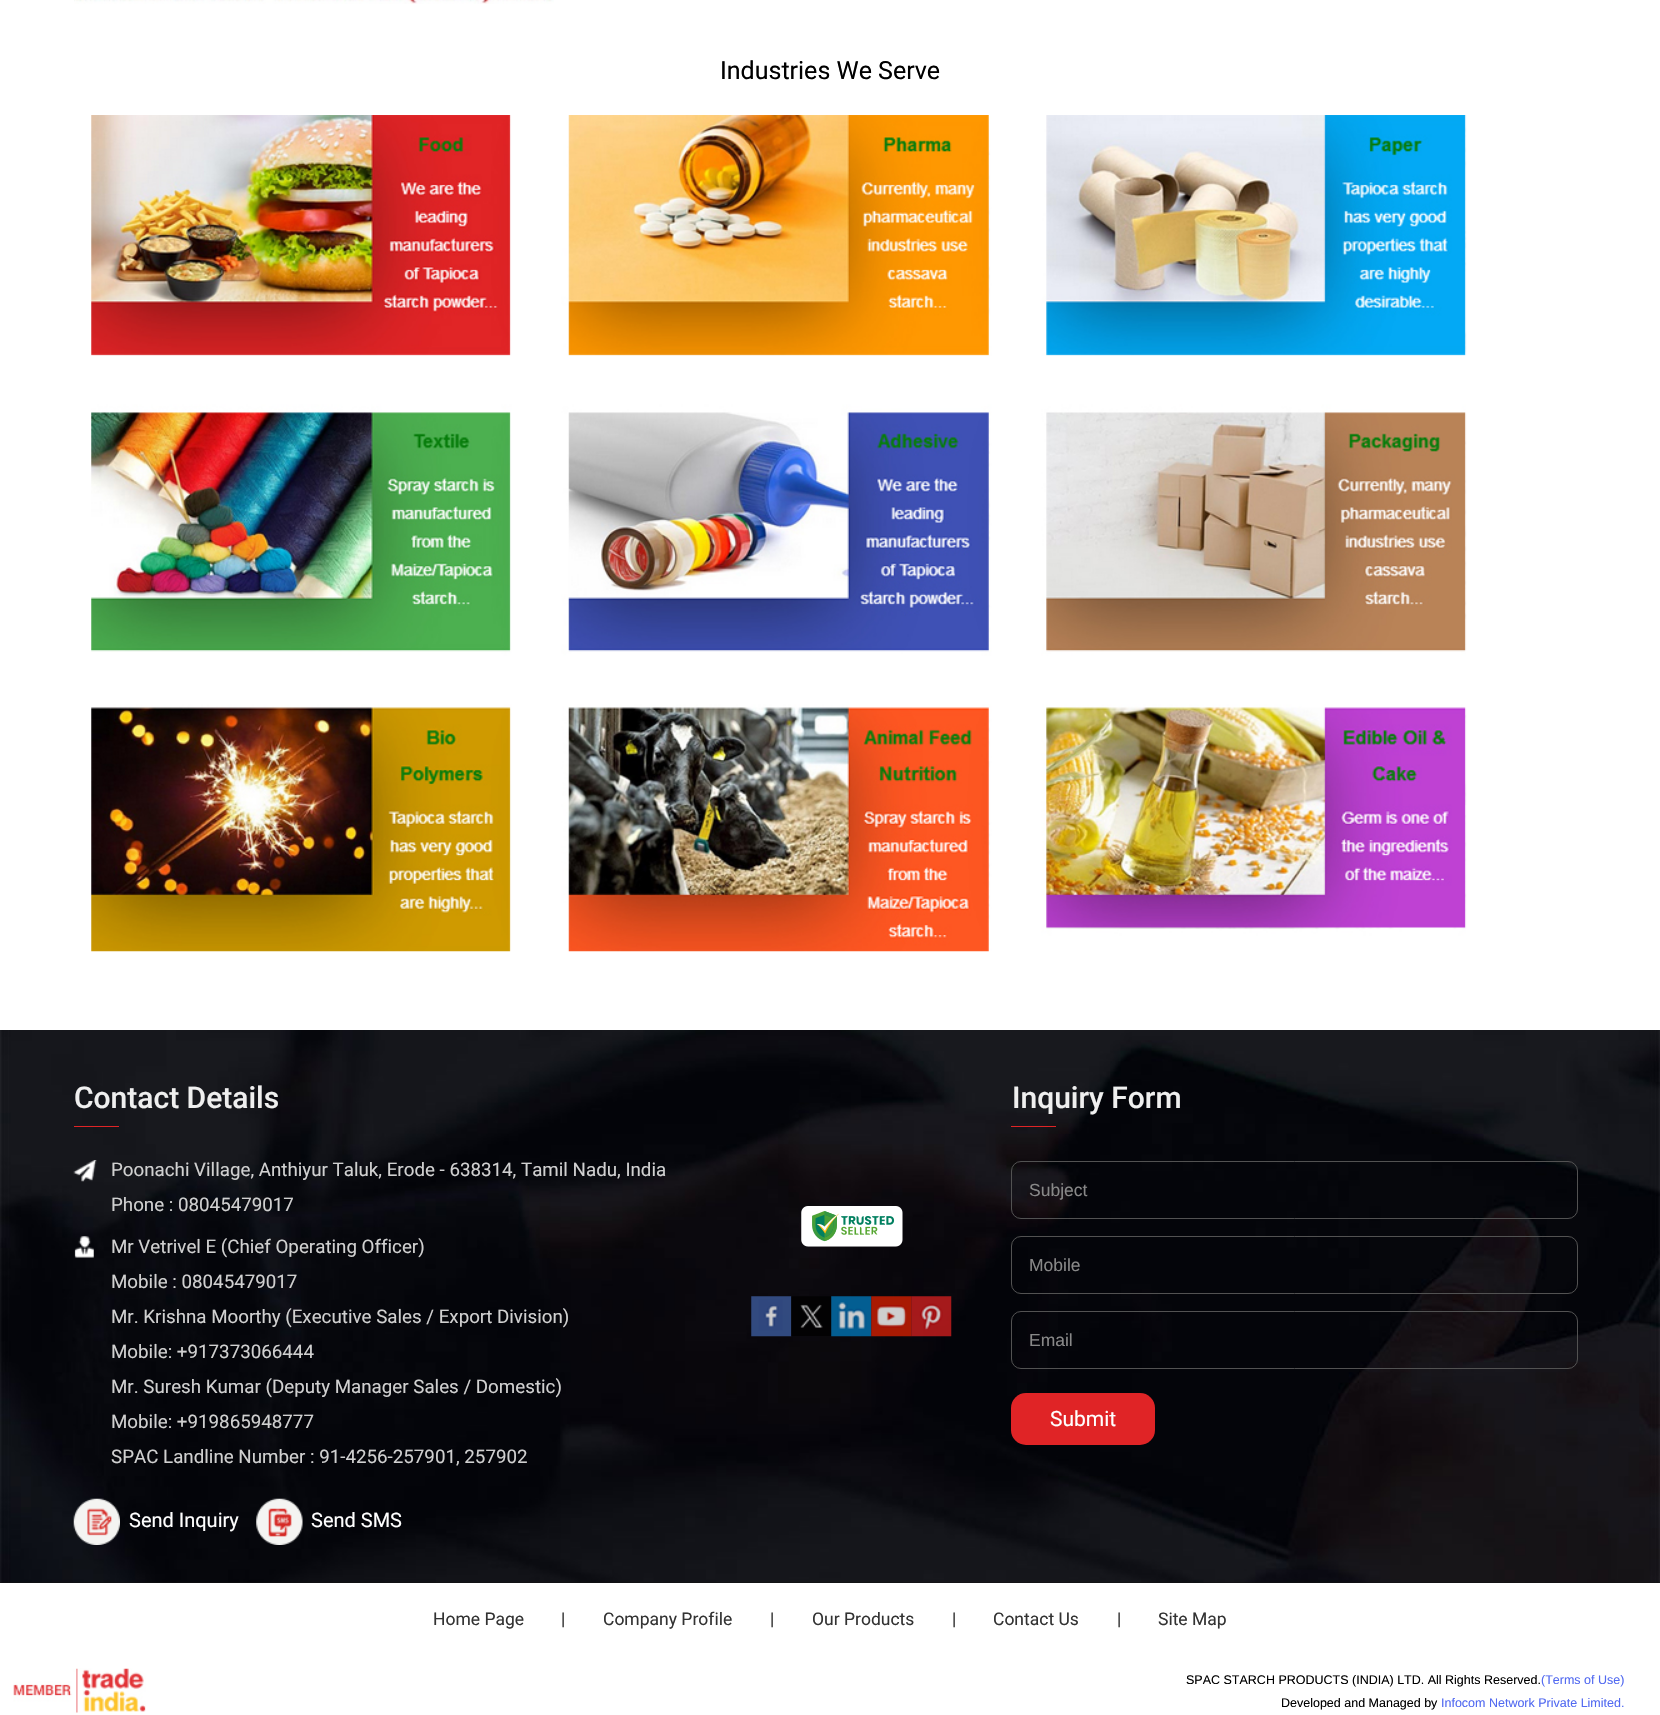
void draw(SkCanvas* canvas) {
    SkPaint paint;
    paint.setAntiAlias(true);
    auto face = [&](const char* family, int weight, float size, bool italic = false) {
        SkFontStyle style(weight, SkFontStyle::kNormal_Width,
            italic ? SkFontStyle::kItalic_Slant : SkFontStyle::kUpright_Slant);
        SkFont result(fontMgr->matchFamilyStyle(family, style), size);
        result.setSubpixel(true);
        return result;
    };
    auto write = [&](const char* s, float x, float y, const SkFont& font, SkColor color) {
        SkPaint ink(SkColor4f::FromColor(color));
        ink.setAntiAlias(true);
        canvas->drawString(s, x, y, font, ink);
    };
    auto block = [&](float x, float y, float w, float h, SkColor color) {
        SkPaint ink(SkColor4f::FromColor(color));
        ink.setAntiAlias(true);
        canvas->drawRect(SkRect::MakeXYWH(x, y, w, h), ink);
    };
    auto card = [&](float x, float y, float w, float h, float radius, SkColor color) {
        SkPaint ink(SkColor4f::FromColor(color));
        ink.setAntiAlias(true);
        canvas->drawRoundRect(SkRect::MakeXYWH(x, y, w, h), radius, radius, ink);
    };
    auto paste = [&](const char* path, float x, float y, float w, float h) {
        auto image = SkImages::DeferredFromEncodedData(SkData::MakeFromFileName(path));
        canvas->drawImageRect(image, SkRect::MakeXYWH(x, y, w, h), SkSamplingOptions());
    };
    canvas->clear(SK_ColorWHITE);
    paste("pic1.png", 74, 0, 480, 4);
    auto kFont1 = face("Roboto", 400, 25);
    write("Industries We Serve", 720, 79, kFont1, SK_ColorBLACK);
    paste("pic2.png", 91, 115, 1376, 837);
    block(0, 1582, 1660, 1, SkColorSetRGB(17, 17, 17));
    paste("pic3.png", 0, 1030, 1660, 553);
    auto kFont2 = face("Roboto", 500, 30);
    write("Contact Details", 74, 1108, kFont2, SkColorSetRGB(239, 239, 239));
    block(74, 1126, 45, 1, SkColorSetRGB(224, 36, 38));
    paste("pic4.png", 73, 1160, 24, 22);
    auto kFont3 = face("Roboto", 400, 18.75f);
    write("Poonachi Village, Anthiyur Taluk, Erode - 638314, Tamil Nadu, India", 111, 1176, kFont3, SkColorSetRGB(208, 208, 208));
    write("Phone : 08045479017", 111, 1211, kFont3, SkColorSetRGB(208, 208, 208));
    paste("pic5.png", 74, 1236, 20, 22);
    write("Mr Vetrivel E (Chief Operating Officer)", 111, 1253, kFont3, SkColorSetRGB(208, 208, 208));
    write("Mobile : 08045479017", 111, 1288, kFont3, SkColorSetRGB(208, 208, 208));
    write("Mr. Krishna Moorthy (Executive Sales / Export Division)", 111, 1323, kFont3, SkColorSetRGB(208, 208, 208));
    write("Mobile: +917373066444", 111, 1358, kFont3, SkColorSetRGB(208, 208, 208));
    write("Mr. Suresh Kumar (Deputy Manager Sales / Domestic)", 111, 1393, kFont3, SkColorSetRGB(208, 208, 208));
    write("Mobile: +919865948777", 111, 1428, kFont3, SkColorSetRGB(208, 208, 208));
    write("SPAC Landline Number : 91-4256-257901, 257902", 111, 1463, kFont3, SkColorSetRGB(208, 208, 208));
    paste("pic6.png", 73, 1498, 47, 47);
    auto kFont4 = face("Roboto", 400, 20);
    write("Send Inquiry", 129, 1527, kFont4, SK_ColorWHITE);
    paste("pic7.png", 256, 1498, 47, 47);
    write("Send SMS", 311, 1527, kFont4, SK_ColorWHITE);
    paste("pic8.png", 801, 1206, 102, 41);
    paste("pic9.png", 751, 1296, 41, 41);
    paste("pic10.png", 791, 1296, 40, 40);
    paste("pic11.png", 831, 1296, 41, 41);
    paste("pic12.png", 871, 1296, 41, 41);
    paste("pic13.png", 911, 1296, 41, 41);
    write("Inquiry Form", 1012, 1108, kFont2, SkColorSetRGB(239, 239, 239));
    block(1011, 1126, 45, 1, SkColorSetRGB(224, 36, 38));
    paint.setStyle(SkPaint::kStroke_Style);
    paint.setStrokeWidth(1);
    paint.setColor(SkColorSetRGB(82, 82, 82));
    canvas->drawRoundRect(SkRect::MakeXYWH(1011.5f, 1161.5f, 566, 57), 9.5f, 9.5f, paint);
    auto kFont5 = face("Liberation Sans", 400, 17.5f);
    write("Subject", 1029, 1196, kFont5, SkColorSetRGB(136, 136, 136));
    canvas->drawRoundRect(SkRect::MakeXYWH(1011.5f, 1236.5f, 566, 57), 9.5f, 9.5f, paint);
    write("Mobile", 1029, 1271, kFont5, SkColorSetRGB(136, 136, 136));
    canvas->drawRoundRect(SkRect::MakeXYWH(1011.5f, 1311.5f, 566, 57), 9.5f, 9.5f, paint);
    write("Email", 1029, 1346, kFont5, SkColorSetRGB(136, 136, 136));
    card(1011, 1393, 144, 52, 15, SkColorSetRGB(224, 36, 38));
    auto kFont6 = face("Roboto", 400, 21);
    write("Submit", 1050, 1426, kFont6, SK_ColorWHITE);
    auto kFont7 = face("Roboto", 400, 17.5f);
    write("Home Page", 433, 1625, kFont7, SkColorSetRGB(51, 51, 51));
    write("|", 561, 1625, kFont7, SkColorSetRGB(51, 51, 51));
    write("Company Profile", 603, 1625, kFont7, SkColorSetRGB(51, 51, 51));
    write("|", 770, 1625, kFont7, SkColorSetRGB(51, 51, 51));
    write("Our Products", 812, 1625, kFont7, SkColorSetRGB(51, 51, 51));
    write("|", 952, 1625, kFont7, SkColorSetRGB(51, 51, 51));
    write("Contact Us", 993, 1625, kFont7, SkColorSetRGB(51, 51, 51));
    write("|", 1117, 1625, kFont7, SkColorSetRGB(51, 51, 51));
    write("Site Map", 1158, 1625, kFont7, SkColorSetRGB(51, 51, 51));
    paste("pic14.png", 13, 1668, 133, 45);
    auto kFont8 = face("Liberation Sans", 400, 12.5f);
    write("SPAC STARCH PRODUCTS (INDIA) LTD. All Rights Reserved.", 1186, 1684, kFont8, SK_ColorBLACK);
    write("(Terms of Use)", 1541, 1684, kFont8, SkColorSetRGB(82, 106, 241));
    write("Developed and Managed by", 1281, 1707, kFont8, SK_ColorBLACK);
    write("Infocom Network Private Limited.", 1441, 1707, kFont8, SkColorSetRGB(82, 106, 241));
}
